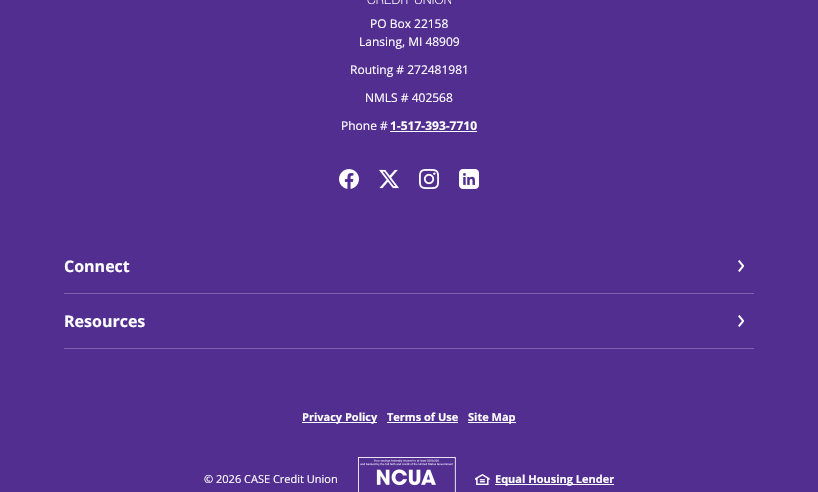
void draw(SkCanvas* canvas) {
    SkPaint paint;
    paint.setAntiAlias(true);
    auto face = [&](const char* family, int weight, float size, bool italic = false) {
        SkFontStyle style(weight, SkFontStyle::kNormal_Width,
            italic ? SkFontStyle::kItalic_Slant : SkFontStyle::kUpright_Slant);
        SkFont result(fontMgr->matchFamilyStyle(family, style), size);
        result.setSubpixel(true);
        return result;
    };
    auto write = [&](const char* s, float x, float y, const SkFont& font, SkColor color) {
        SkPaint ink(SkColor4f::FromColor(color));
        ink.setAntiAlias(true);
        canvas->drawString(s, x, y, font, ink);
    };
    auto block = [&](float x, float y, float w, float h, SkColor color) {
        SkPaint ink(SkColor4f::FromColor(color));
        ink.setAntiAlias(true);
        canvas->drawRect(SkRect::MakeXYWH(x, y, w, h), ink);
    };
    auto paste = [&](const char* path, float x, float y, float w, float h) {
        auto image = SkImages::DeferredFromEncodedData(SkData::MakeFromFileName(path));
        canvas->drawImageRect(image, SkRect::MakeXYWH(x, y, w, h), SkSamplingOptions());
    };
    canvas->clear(SkColorSetRGB(82, 46, 145));
    paste("pic1.png", 367, 0, 84, 5);
    auto kFont1 = face("Open Sans", 400, 12);
    write("PO Box 22158", 370, 28, kFont1, SK_ColorWHITE);
    write("Lansing, MI 48909", 359, 46, kFont1, SK_ColorWHITE);
    write("Routing # 272481981", 350, 74, kFont1, SK_ColorWHITE);
    write("NMLS # 402568", 365, 102, kFont1, SK_ColorWHITE);
    write("Phone #", 341, 130, kFont1, SK_ColorWHITE);
    auto kFont2 = face("Open Sans", 700, 12);
    write("1-517-393-7710", 390, 130, kFont2, SK_ColorWHITE);
    block(390, 131, 87, 1, SK_ColorWHITE);
    paste("pic2.png", 339, 169, 20, 20);
    paste("pic3.png", 379, 169, 20, 20);
    paste("pic4.png", 419, 169, 20, 20);
    paste("pic5.png", 459, 169, 20, 20);
    block(64, 293, 690, 1, SkColorSetRGB(125, 98, 173));
    auto kFont3 = face("Open Sans", 700, 16);
    write("Connect", 64, 272, kFont3, SK_ColorWHITE);
    paste("pic6.png", 738, 260, 6, 12);
    block(64, 348, 690, 1, SkColorSetRGB(125, 98, 173));
    write("Resources", 64, 327, kFont3, SK_ColorWHITE);
    paste("pic6.png", 738, 315, 6, 12);
    block(302, 422, 75, 1, SK_ColorWHITE);
    auto kFont4 = face("Open Sans", 700, 11);
    write("Privacy Policy", 302, 421, kFont4, SK_ColorWHITE);
    write("Terms of Use", 387, 421, kFont4, SK_ColorWHITE);
    block(387, 422, 71, 1, SK_ColorWHITE);
    block(468, 422, 48, 1, SK_ColorWHITE);
    write("Site Map", 468, 421, kFont4, SK_ColorWHITE);
    auto kFont5 = face("Open Sans", 400, 11);
    write("© 2026 CASE Credit Union", 204, 483, kFont5, SK_ColorWHITE);
    paste("pic7.png", 358, 457, 98, 35);
    paste("pic8.png", 475, 474, 15, 11);
    block(495, 484, 119, 1, SK_ColorWHITE);
    write("Equal Housing Lender", 495, 483, kFont4, SK_ColorWHITE);
}
